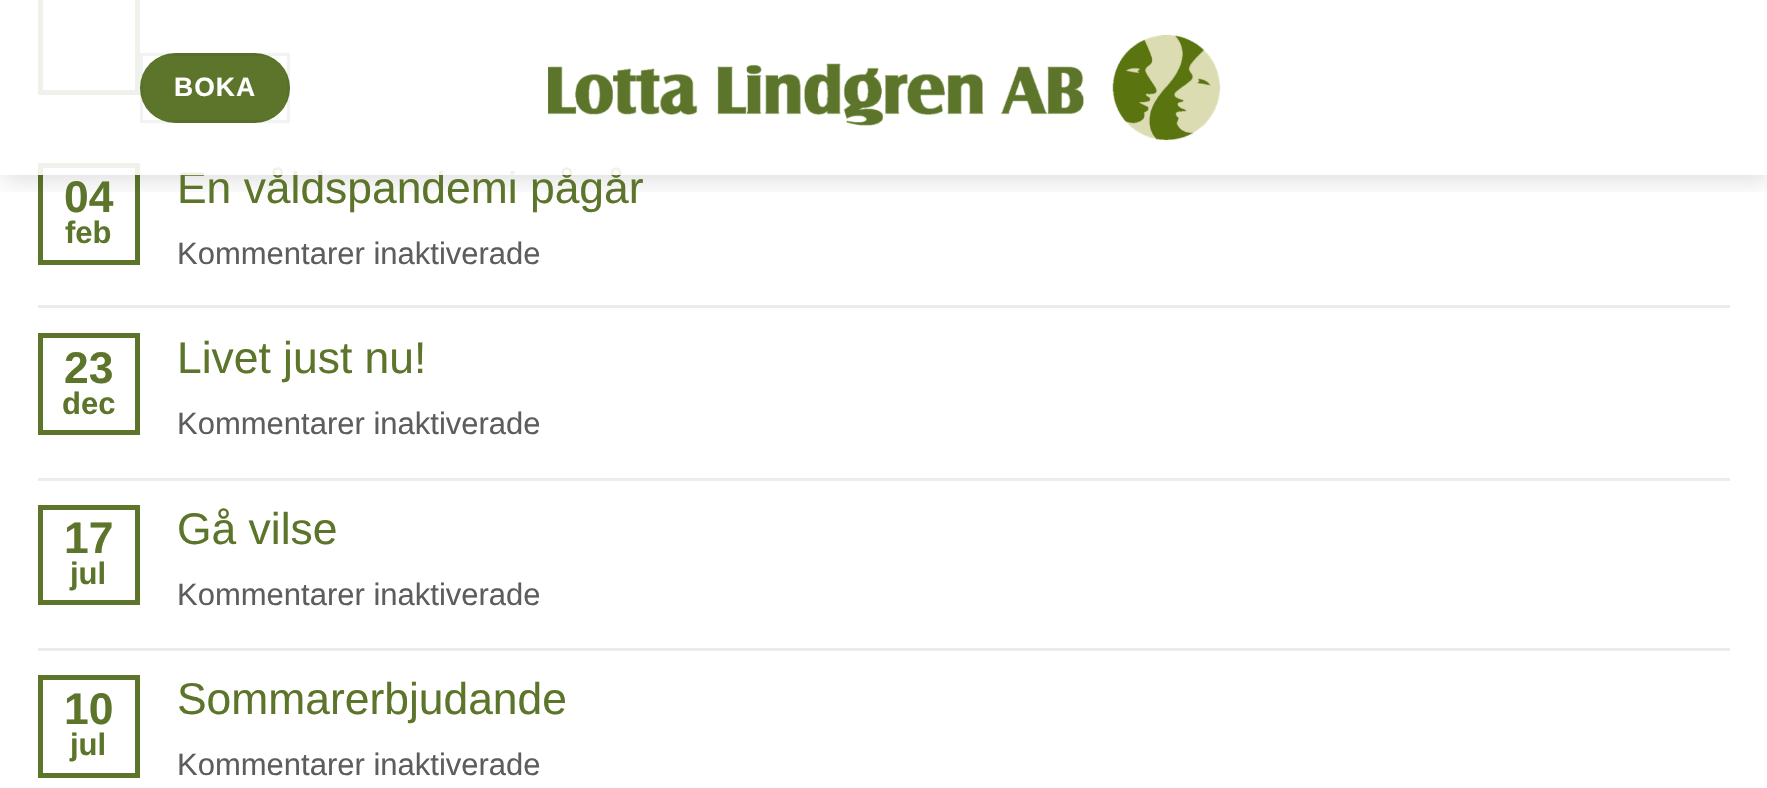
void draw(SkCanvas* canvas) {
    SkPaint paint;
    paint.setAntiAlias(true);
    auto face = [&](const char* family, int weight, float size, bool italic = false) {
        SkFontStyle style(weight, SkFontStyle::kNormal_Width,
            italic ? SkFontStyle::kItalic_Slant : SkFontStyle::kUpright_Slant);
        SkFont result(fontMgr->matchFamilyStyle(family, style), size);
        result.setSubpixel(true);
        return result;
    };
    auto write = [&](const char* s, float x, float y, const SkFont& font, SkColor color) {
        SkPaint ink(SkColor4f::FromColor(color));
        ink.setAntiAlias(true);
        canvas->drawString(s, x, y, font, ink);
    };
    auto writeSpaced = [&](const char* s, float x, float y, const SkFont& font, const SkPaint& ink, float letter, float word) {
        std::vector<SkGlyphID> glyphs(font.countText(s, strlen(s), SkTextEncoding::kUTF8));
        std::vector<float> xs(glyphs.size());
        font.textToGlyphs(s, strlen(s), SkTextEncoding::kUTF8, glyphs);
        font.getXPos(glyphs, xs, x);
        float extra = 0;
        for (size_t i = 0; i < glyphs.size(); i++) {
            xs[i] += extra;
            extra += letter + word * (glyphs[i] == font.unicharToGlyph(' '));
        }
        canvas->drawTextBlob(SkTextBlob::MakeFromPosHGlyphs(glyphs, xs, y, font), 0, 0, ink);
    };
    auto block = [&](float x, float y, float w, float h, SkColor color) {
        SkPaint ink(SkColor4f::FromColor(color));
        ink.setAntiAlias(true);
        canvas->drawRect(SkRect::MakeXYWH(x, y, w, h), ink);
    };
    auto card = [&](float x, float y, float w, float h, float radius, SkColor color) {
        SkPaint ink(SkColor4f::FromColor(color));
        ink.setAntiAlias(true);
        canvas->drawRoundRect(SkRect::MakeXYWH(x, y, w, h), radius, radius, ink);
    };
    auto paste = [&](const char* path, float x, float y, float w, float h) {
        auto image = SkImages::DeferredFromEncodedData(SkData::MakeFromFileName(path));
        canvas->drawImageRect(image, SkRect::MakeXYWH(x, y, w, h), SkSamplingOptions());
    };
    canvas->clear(SK_ColorWHITE);
    paint.setStyle(SkPaint::kStroke_Style);
    paint.setStrokeWidth(5);
    paint.setColor(SkColorSetRGB(92, 117, 42));
    canvas->drawRect(SkRect::MakeXYWH(40.5f, -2.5f, 97, 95), paint);
    block(38, 135, 1692, 3, SkColorSetRGB(236, 236, 236));
    canvas->drawRect(SkRect::MakeXYWH(40.5f, 165.5f, 97, 97), paint);
    canvas->save();
    canvas->clipRect(SkRect::MakeXYWH(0, 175, 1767, 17));
    paint.setStyle(SkPaint::kFill_Style);
    paint.setColor(SkColorSetARGB(38, 0, 0, 0));
    paint.setMaskFilter(SkMaskFilter::MakeBlur(kNormal_SkBlurStyle, 12.5f));
    canvas->drawRect(SkRect::MakeXYWH(3, 3, 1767, 175), paint);
    paint.setMaskFilter(nullptr);
    canvas->restore();
    auto kFont1 = face("Liberation Sans", 400, 44.4f);
    write("En våldspandemi pågår", 177, 203, kFont1, SkColorSetRGB(92, 117, 42));
    block(38, 0, 1692, 175, SkColorSetARGB(230, 255, 255, 255));
    card(140, 53, 150, 70, 35, SkColorSetRGB(92, 117, 42));
    paint.setStyle(SkPaint::kStroke_Style);
    paint.setStrokeWidth(3);
    paint.setColor(SkColorSetARGB(13, 0, 0, 0));
    canvas->drawRect(SkRect::MakeXYWH(141.5f, 54.5f, 147, 67), paint);
    auto kFont2 = face("Liberation Sans", 700, 26.5f);
    paint.setStyle(SkPaint::kFill_Style);
    paint.setColor(SK_ColorWHITE);
    writeSpaced("BOKA", 174, 96, kFont2, paint, 1, 0);
    paste("pic1.png", 548, 34, 672, 106);
    auto kFont3 = face("Liberation Sans", 700, 44.4f);
    write("04", 64, 212, kFont3, SkColorSetRGB(92, 117, 42));
    auto kFont4 = face("Liberation Sans", 700, 31);
    write("feb", 65, 243, kFont4, SkColorSetRGB(92, 117, 42));
    auto kFont5 = face("Liberation Sans", 400, 31);
    write("Kommentarer inaktiverade", 177, 264, kFont5, SkColorSetRGB(93, 93, 93));
    block(38, 305, 1692, 3, SkColorSetRGB(236, 236, 236));
    paint.setStyle(SkPaint::kStroke_Style);
    paint.setStrokeWidth(5);
    paint.setColor(SkColorSetRGB(92, 117, 42));
    canvas->drawRect(SkRect::MakeXYWH(40.5f, 335.5f, 97, 97), paint);
    write("23", 64, 383, kFont3, SkColorSetRGB(92, 117, 42));
    write("dec", 62, 414, kFont4, SkColorSetRGB(92, 117, 42));
    write("Livet just nu!", 177, 373, kFont1, SkColorSetRGB(92, 117, 42));
    write("Kommentarer inaktiverade", 177, 434, kFont5, SkColorSetRGB(93, 93, 93));
    block(38, 478, 1692, 3, SkColorSetRGB(236, 236, 236));
    canvas->drawRect(SkRect::MakeXYWH(40.5f, 507.5f, 97, 95), paint);
    write("17", 64, 553, kFont3, SkColorSetRGB(92, 117, 42));
    write("jul", 70, 584, kFont4, SkColorSetRGB(92, 117, 42));
    write("Gå vilse", 177, 544, kFont1, SkColorSetRGB(92, 117, 42));
    write("Kommentarer inaktiverade", 177, 605, kFont5, SkColorSetRGB(93, 93, 93));
    block(38, 648, 1692, 3, SkColorSetRGB(236, 236, 236));
    canvas->drawRect(SkRect::MakeXYWH(40.5f, 677.5f, 97, 98), paint);
    write("10", 64, 724, kFont3, SkColorSetRGB(92, 117, 42));
    write("jul", 70, 755, kFont4, SkColorSetRGB(92, 117, 42));
    write("Sommarerbjudande", 177, 714, kFont1, SkColorSetRGB(92, 117, 42));
    write("Kommentarer inaktiverade", 177, 775, kFont5, SkColorSetRGB(93, 93, 93));
}
